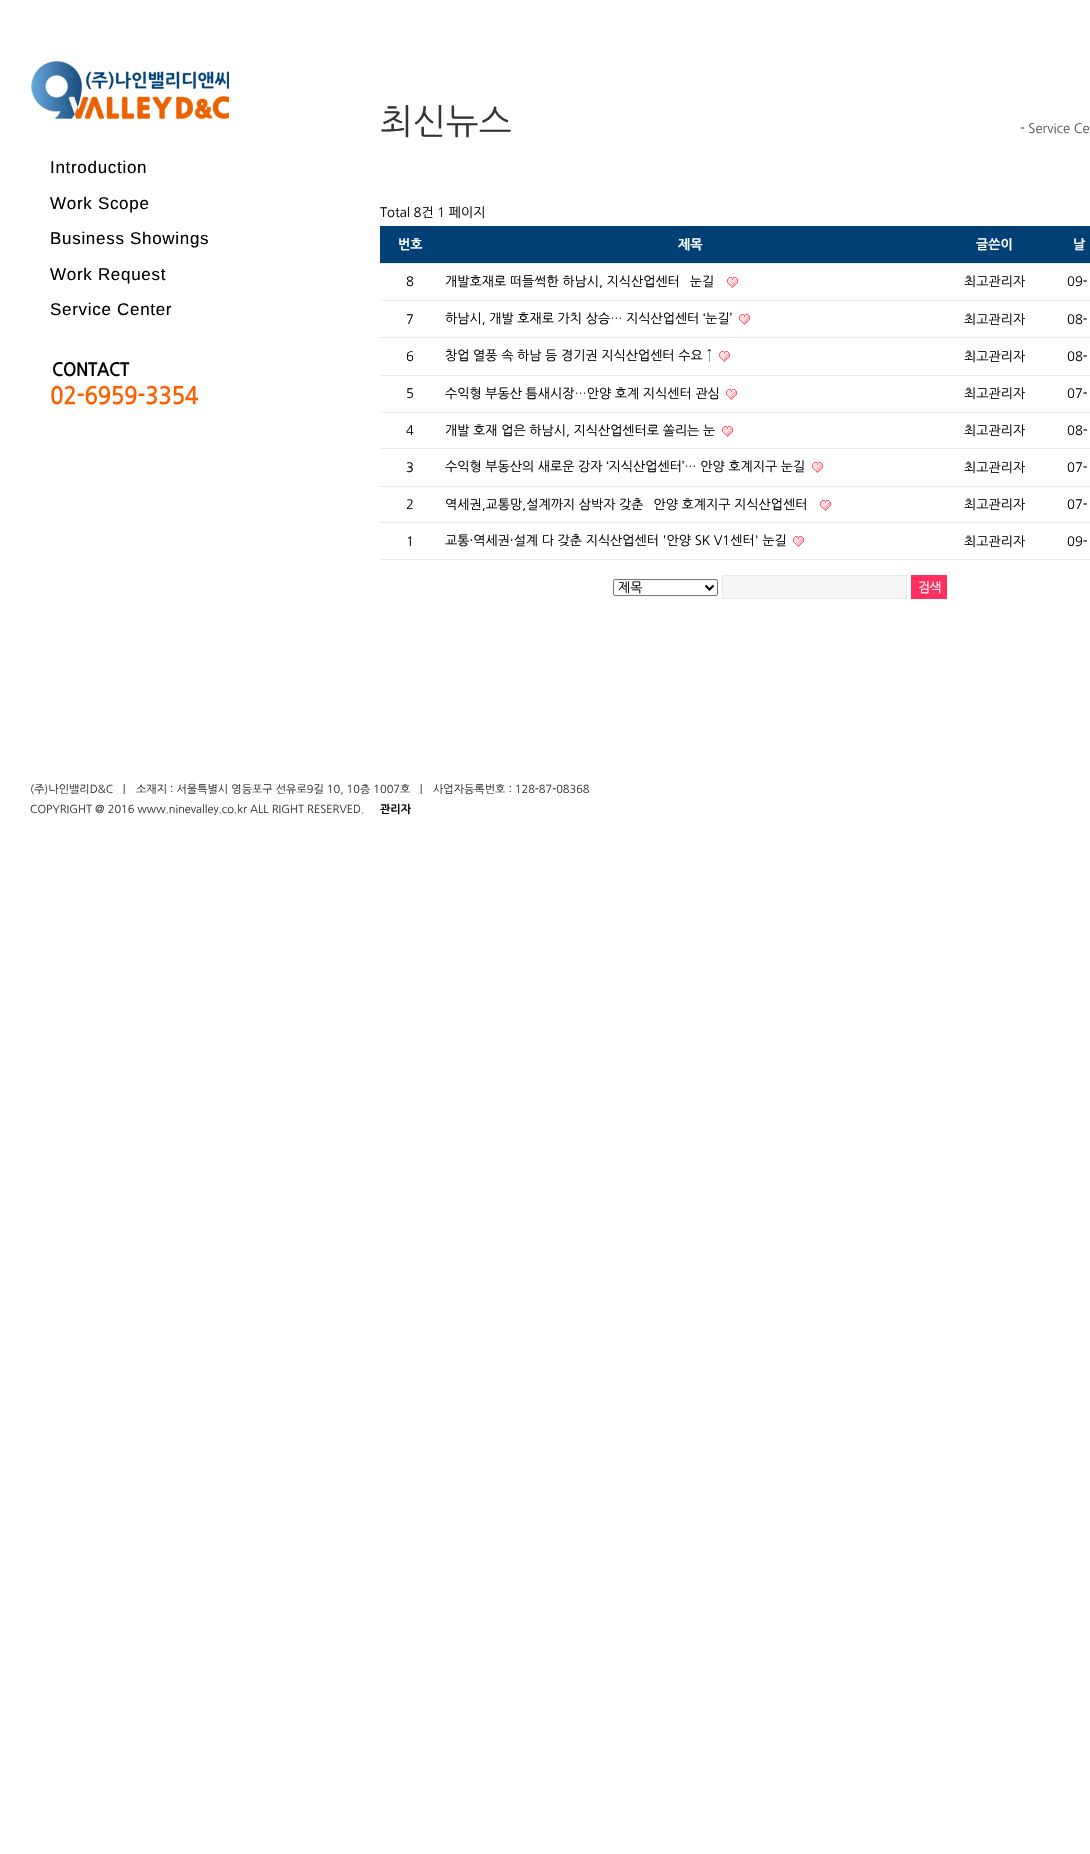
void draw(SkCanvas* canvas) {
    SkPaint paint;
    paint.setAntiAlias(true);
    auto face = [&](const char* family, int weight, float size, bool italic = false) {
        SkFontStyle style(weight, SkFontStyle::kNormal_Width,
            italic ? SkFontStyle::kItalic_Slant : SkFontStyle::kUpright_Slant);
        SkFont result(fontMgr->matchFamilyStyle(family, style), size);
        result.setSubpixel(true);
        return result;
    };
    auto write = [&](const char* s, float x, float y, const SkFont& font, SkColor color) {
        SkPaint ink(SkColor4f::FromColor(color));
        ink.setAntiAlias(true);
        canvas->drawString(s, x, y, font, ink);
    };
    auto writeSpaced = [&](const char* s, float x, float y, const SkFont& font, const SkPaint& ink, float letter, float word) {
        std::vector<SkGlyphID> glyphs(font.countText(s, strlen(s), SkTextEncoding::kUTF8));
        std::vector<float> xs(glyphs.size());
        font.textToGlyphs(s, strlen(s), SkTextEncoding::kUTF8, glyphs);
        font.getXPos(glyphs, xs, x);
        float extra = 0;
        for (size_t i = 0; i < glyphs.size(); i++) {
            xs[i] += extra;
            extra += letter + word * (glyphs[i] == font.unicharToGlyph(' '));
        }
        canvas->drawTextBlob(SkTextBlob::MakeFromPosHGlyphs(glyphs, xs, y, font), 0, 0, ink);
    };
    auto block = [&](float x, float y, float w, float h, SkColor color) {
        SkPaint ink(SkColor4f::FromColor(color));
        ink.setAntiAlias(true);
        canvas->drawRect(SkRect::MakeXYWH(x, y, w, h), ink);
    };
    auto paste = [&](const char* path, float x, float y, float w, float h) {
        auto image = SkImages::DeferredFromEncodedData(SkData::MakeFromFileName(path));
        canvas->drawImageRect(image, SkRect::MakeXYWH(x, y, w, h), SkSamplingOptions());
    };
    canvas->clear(SK_ColorWHITE);
    paste("pic1.png", 31, 61, 198, 58);
    auto kFont1 = face("Liberation Sans", 400, 17);
    paint.setColor(SK_ColorBLACK);
    writeSpaced("Introduction", 50, 173, kFont1, paint, 0.7f, 0);
    writeSpaced("Work Scope", 50, 209, kFont1, paint, 0.7f, 0);
    writeSpaced("Business Showings", 50, 244, kFont1, paint, 0.7f, 0);
    writeSpaced("Work Request", 50, 280, kFont1, paint, 0.7f, 0);
    writeSpaced("Service Center", 50, 315, kFont1, paint, 0.7f, 0);
    paste("pic2.png", 51, 361, 147, 44);
    auto kFont2 = face("NanumGothic", 400, 35);
    write("최신뉴스", 380, 134, kFont2, SkColorSetRGB(51, 51, 51));
    auto kFont3 = face("NanumGothic", 400, 13);
    write("- Service Ce", 1020, 133, kFont3, SkColorSetRGB(84, 84, 84));
    write("Total 8건 1 페이지", 380, 217, kFont3, SK_ColorBLACK);
    block(380, 226, 710, 37, SkColorSetRGB(0, 64, 117));
    auto kFont4 = face("NanumGothic", 700, 13);
    write("번호", 398, 249, kFont4, SK_ColorWHITE);
    write("제목", 678, 249, kFont4, SK_ColorWHITE);
    write("글쓴이", 976, 249, kFont4, SK_ColorWHITE);
    write("날", 1073, 249, kFont4, SK_ColorWHITE);
    write("8", 406, 286, kFont3, SK_ColorBLACK);
    write("개발호재로 떠들썩한 하남시, 지식산업센터 `눈길`", 445, 286, kFont3, SK_ColorBLACK);
    paste("pic3.png", 727, 277, 11, 11);
    write("최고관리자", 964, 286, kFont3, SK_ColorBLACK);
    block(380, 263, 710, 1, SkColorSetRGB(233, 233, 233));
    write("09-", 1067, 286, kFont3, SK_ColorBLACK);
    write("7", 406, 324, kFont3, SK_ColorBLACK);
    write("하남시, 개발 호재로 가치 상승… 지식산업센터 ‘눈길’", 445, 323, kFont3, SK_ColorBLACK);
    paste("pic3.png", 739, 314, 11, 11);
    write("최고관리자", 964, 324, kFont3, SK_ColorBLACK);
    block(380, 300, 710, 1, SkColorSetRGB(233, 233, 233));
    write("08-", 1067, 324, kFont3, SK_ColorBLACK);
    write("6", 406, 361, kFont3, SK_ColorBLACK);
    write("창업 열풍 속 하남 등 경기권 지식산업센터 수요 ↑", 445, 360, kFont3, SK_ColorBLACK);
    paste("pic3.png", 719, 351, 11, 11);
    write("최고관리자", 964, 361, kFont3, SK_ColorBLACK);
    block(380, 337, 710, 1, SkColorSetRGB(233, 233, 233));
    write("08-", 1067, 361, kFont3, SK_ColorBLACK);
    write("5", 406, 398, kFont3, SK_ColorBLACK);
    write("수익형 부동산 틈새시장…안양 호계 지식센터 관심", 445, 398, kFont3, SK_ColorBLACK);
    paste("pic3.png", 726, 389, 11, 11);
    write("최고관리자", 964, 398, kFont3, SK_ColorBLACK);
    block(380, 375, 710, 1, SkColorSetRGB(233, 233, 233));
    write("07-", 1067, 398, kFont3, SK_ColorBLACK);
    write("4", 406, 435, kFont3, SK_ColorBLACK);
    write("개발 호재 업은 하남시, 지식산업센터로 쏠리는 눈", 445, 435, kFont3, SK_ColorBLACK);
    paste("pic3.png", 722, 426, 11, 11);
    write("최고관리자", 964, 435, kFont3, SK_ColorBLACK);
    block(380, 412, 710, 1, SkColorSetRGB(233, 233, 233));
    write("08-", 1067, 435, kFont3, SK_ColorBLACK);
    write("3", 406, 472, kFont3, SK_ColorBLACK);
    write("수익형 부동산의 새로운 강자 ‘지식산업센터’… 안양 호계지구 눈길", 445, 471, kFont3, SK_ColorBLACK);
    paste("pic3.png", 812, 462, 11, 11);
    write("최고관리자", 964, 472, kFont3, SK_ColorBLACK);
    block(380, 448, 710, 1, SkColorSetRGB(233, 233, 233));
    write("07-", 1067, 472, kFont3, SK_ColorBLACK);
    write("2", 406, 509, kFont3, SK_ColorBLACK);
    write("역세권,교통망,설계까지 삼박자 갖춘 `안양 호계지구 지식산업센터`", 445, 509, kFont3, SK_ColorBLACK);
    paste("pic3.png", 820, 500, 11, 11);
    write("최고관리자", 964, 509, kFont3, SK_ColorBLACK);
    block(380, 486, 710, 1, SkColorSetRGB(233, 233, 233));
    write("07-", 1067, 509, kFont3, SK_ColorBLACK);
    write("1", 406, 546, kFont3, SK_ColorBLACK);
    write("교통·역세권·설계 다 갖춘 지식산업센터 '안양 SK V1센터' 눈길", 445, 545, kFont3, SK_ColorBLACK);
    paste("pic3.png", 793, 536, 11, 11);
    write("최고관리자", 964, 546, kFont3, SK_ColorBLACK);
    block(380, 522, 710, 1, SkColorSetRGB(233, 233, 233));
    block(380, 559, 710, 1, SkColorSetRGB(233, 233, 233));
    write("09-", 1067, 546, kFont3, SK_ColorBLACK);
    paint.setStyle(SkPaint::kStroke_Style);
    paint.setStrokeWidth(1);
    paint.setColor(SkColorSetRGB(118, 118, 118));
    canvas->drawRoundRect(SkRect::MakeXYWH(613.5f, 579.5f, 104, 16), 1.5f, 1.5f, paint);
    paint.setStrokeWidth(2);
    paint.setColor(SK_ColorBLACK);
    canvas->drawPath(SkPathBuilder().moveTo(705.5f, 585.5f).lineTo(709.5f, 589.5f).lineTo(713.5f, 585.5f).detach(), paint);
    write("제목", 618, 592, kFont3, SK_ColorBLACK);
    paint.setStyle(SkPaint::kFill_Style);
    paint.setColor(SkColorSetRGB(247, 247, 247));
    canvas->drawRect(SkRect::MakeXYWH(722.5f, 575.5f, 184, 23), paint);
    paint.setStyle(SkPaint::kStroke_Style);
    paint.setStrokeWidth(1);
    paint.setColor(SkColorSetRGB(228, 234, 236));
    canvas->drawRect(SkRect::MakeXYWH(722.5f, 575.5f, 184, 23), paint);
    block(911, 575, 36, 24, SkColorSetRGB(255, 48, 97));
    paint.setStyle(SkPaint::kFill_Style);
    paint.setColor(SK_ColorWHITE);
    writeSpaced("검색", 918, 592, kFont3, paint, -1, 0);
    auto kFont5 = face("NanumGothic", 400, 11);
    write("(주)나인밸리D&C", 30, 793, kFont5, SkColorSetRGB(51, 51, 51));
    write("ㅣ", 119, 793, kFont5, SkColorSetRGB(51, 51, 51));
    write("소재지 : 서울특별시 영등포구 선유로9길 10, 10층 1007호", 136, 793, kFont5, SkColorSetRGB(51, 51, 51));
    write("ㅣ", 416, 793, kFont5, SkColorSetRGB(51, 51, 51));
    write("사업자등록번호 : 128-87-08368", 433, 793, kFont5, SkColorSetRGB(51, 51, 51));
    write("COPYRIGHT @ 2016 www.ninevalley.co.kr ALL RIGHT RESERVED.", 30, 813, kFont5, SkColorSetRGB(51, 51, 51));
    auto kFont6 = face("NanumGothic", 700, 11);
    write("관리자", 380, 813, kFont6, SK_ColorBLACK);
}
